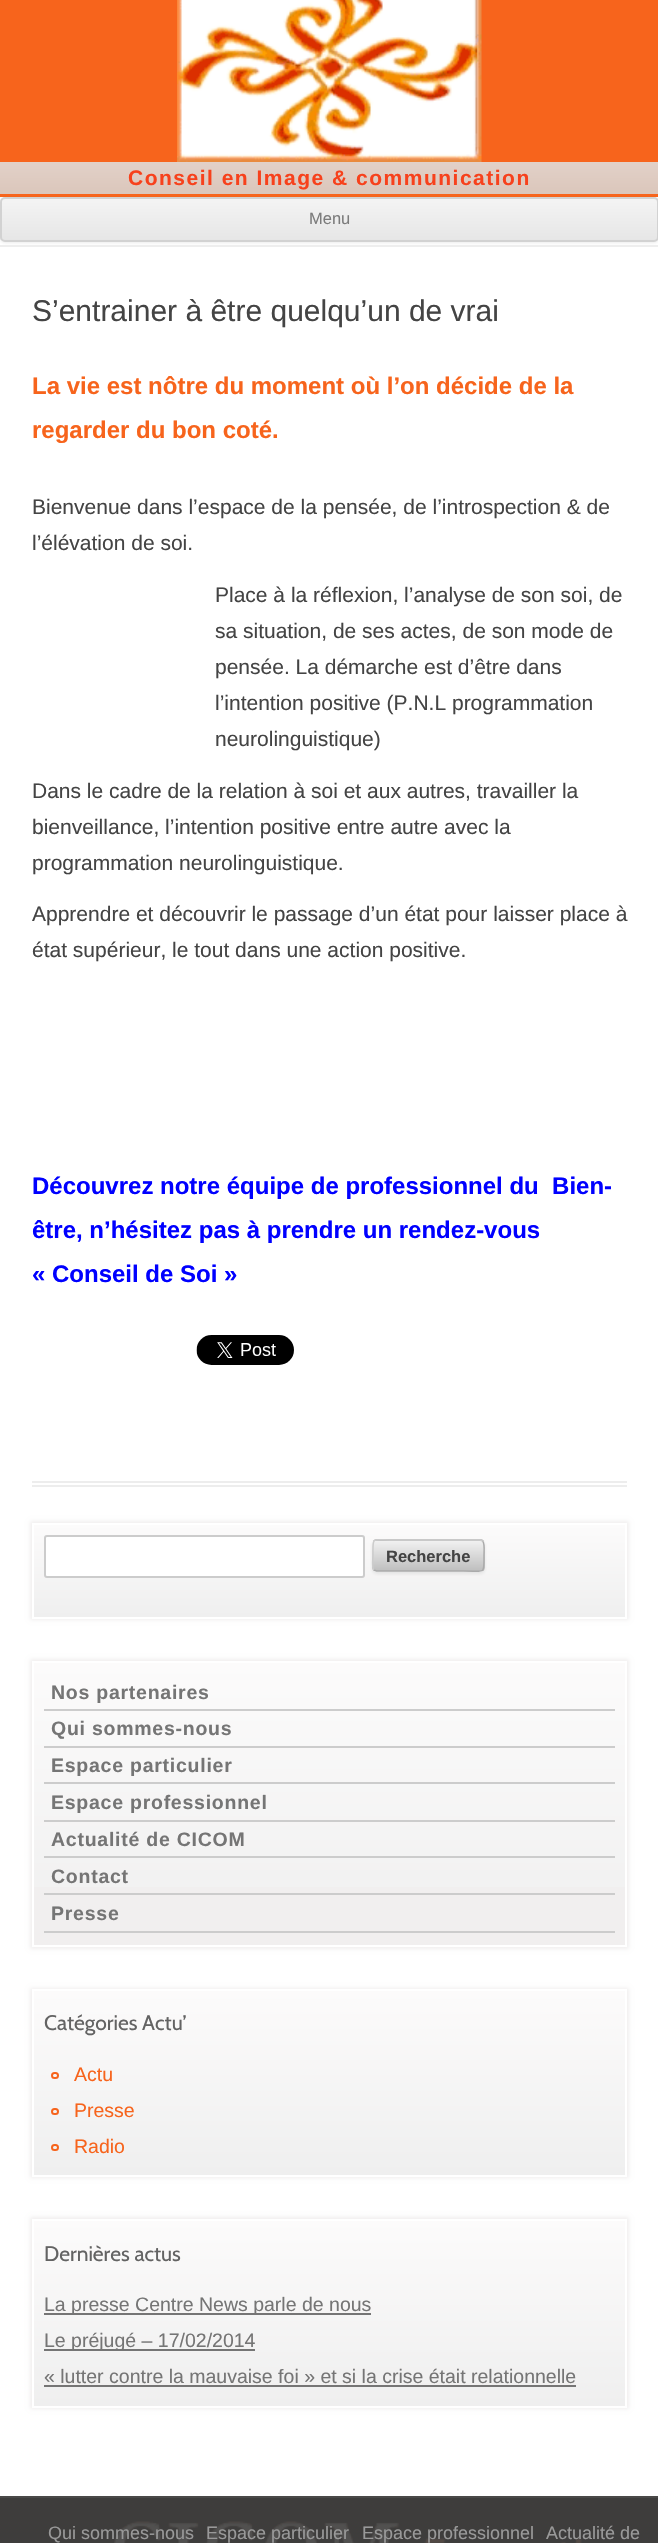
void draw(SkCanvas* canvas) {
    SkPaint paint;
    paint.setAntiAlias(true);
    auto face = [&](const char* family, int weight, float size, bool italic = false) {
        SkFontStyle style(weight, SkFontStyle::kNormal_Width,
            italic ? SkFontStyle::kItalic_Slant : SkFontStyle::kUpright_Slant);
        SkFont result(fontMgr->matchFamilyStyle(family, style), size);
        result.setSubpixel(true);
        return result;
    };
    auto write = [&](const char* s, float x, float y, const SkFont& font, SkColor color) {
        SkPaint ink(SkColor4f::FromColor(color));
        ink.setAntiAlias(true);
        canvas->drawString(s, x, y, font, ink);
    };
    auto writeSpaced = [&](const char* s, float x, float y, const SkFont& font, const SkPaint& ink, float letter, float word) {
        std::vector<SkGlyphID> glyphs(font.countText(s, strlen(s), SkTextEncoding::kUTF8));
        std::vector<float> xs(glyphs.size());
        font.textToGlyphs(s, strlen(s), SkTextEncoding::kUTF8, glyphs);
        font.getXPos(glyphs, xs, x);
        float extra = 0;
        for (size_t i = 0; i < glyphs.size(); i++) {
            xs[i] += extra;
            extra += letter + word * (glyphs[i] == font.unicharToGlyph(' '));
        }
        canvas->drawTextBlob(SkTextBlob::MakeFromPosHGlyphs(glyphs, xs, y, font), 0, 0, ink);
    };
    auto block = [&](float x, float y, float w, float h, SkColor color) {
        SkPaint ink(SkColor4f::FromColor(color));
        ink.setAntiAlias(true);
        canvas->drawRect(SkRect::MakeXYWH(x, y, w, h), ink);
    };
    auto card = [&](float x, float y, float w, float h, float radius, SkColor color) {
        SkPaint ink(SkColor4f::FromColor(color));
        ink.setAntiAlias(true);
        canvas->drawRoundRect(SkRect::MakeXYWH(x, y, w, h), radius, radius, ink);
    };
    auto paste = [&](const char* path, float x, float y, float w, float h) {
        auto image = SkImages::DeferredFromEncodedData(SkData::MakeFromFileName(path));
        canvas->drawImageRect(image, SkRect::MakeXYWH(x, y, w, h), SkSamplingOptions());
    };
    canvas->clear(SK_ColorWHITE);
    block(0, 0, 658, 197, SkColorSetRGB(247, 100, 28));
    paste("pic1.png", 177, 0, 305, 162);
    {
        const SkColor colors[] = {SkColorSetRGB(226, 209, 200), SkColorSetRGB(219, 198, 187)};
        const float stops[] = {0, 1};
        const SkPoint ends[] = {{329, 162}, {329, 194}};
        paint.setShader(SkGradientShader::MakeLinear(ends, colors, stops, 2, SkTileMode::kClamp));
        paint.setAlpha(255);
    }
    canvas->drawRect(SkRect::MakeXYWH(0, 162, 658, 32), paint);
    auto kFont1 = face("Liberation Sans", 700, 21);
    paint.setShader(nullptr);
    paint.setColor(SkColorSetRGB(247, 65, 28));
    writeSpaced("Conseil en Image & communication", 128, 185, kFont1, paint, 1.5f, 0);
    block(0, 245, 658, 2, SkColorSetRGB(238, 238, 238));
    paint.setColor(SkColorSetARGB(26, 64, 64, 64));
    paint.setMaskFilter(SkMaskFilter::MakeBlur(kNormal_SkBlurStyle, 1.5f));
    canvas->drawRoundRect(SkRect::MakeXYWH(0, 198, 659, 45), 5, 5, paint);
    paint.setMaskFilter(nullptr);
    canvas->save();
    canvas->clipPath(SkPathBuilder().moveTo(5, 197).lineTo(654, 197).cubicTo(657, 197, 659, 199, 659, 202).lineTo(659, 237).cubicTo(659, 240, 657, 242, 654, 242).lineTo(5, 242).cubicTo(2, 242, 0, 240, 0, 237).lineTo(0, 202).cubicTo(0, 199, 2, 197, 5, 197).close().detach(), true);
    {
        const SkColor colors[] = {SkColorSetRGB(244, 244, 244), SkColorSetRGB(230, 230, 230)};
        const float stops[] = {0, 1};
        const SkPoint ends[] = {{329, 198}, {329, 240}};
        paint.setShader(SkGradientShader::MakeLinear(ends, colors, stops, 2, SkTileMode::kClamp));
        paint.setAlpha(255);
    }
    canvas->drawRect(SkRect::MakeXYWH(0, 198, 658, 42), paint);
    canvas->restore();
    paint.setStyle(SkPaint::kStroke_Style);
    paint.setStrokeWidth(2);
    paint.setShader(nullptr);
    paint.setColor(SkColorSetRGB(210, 210, 210));
    canvas->drawRoundRect(SkRect::MakeXYWH(1, 198, 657, 43), 4, 4, paint);
    auto kFont2 = face("Liberation Sans", 400, 16.5f);
    write("Menu", 309, 224, kFont2, SkColorSetRGB(124, 124, 124));
    block(32, 1481, 595, 2, SkColorSetRGB(237, 237, 237));
    block(32, 1485, 595, 2, SkColorSetRGB(237, 237, 237));
    auto kFont3 = face("Liberation Sans", 400, 30);
    write("S’entrainer à être quelqu’un de vrai", 32, 321, kFont3, SkColorSetRGB(68, 68, 68));
    auto kFont4 = face("Liberation Sans", 700, 24);
    write("La vie est nôtre du moment où l’on décide de la", 32, 394, kFont4, SkColorSetRGB(247, 100, 28));
    write("regarder du bon coté.", 32, 438, kFont4, SkColorSetRGB(247, 100, 28));
    auto kFont5 = face("Liberation Sans", 400, 21);
    write("Bienvenue dans l’espace de la pensée, de l’introspection & de", 32, 514, kFont5, SkColorSetRGB(68, 68, 68));
    write("l’élévation de soi.", 32, 550, kFont5, SkColorSetRGB(68, 68, 68));
    write("Place à la réflexion, l’analyse de son soi, de", 215, 602, kFont5, SkColorSetRGB(68, 68, 68));
    write("sa situation, de ses actes, de son mode de", 215, 638, kFont5, SkColorSetRGB(68, 68, 68));
    write("pensée. La démarche est d’être dans", 215, 674, kFont5, SkColorSetRGB(68, 68, 68));
    write("l’intention positive (P.N.L programmation", 215, 710, kFont5, SkColorSetRGB(68, 68, 68));
    write("neurolinguistique)", 215, 746, kFont5, SkColorSetRGB(68, 68, 68));
    write("Dans le cadre de la relation à soi et aux autres, travailler la", 32, 798, kFont5, SkColorSetRGB(68, 68, 68));
    write("bienveillance, l’intention positive entre autre avec la", 32, 834, kFont5, SkColorSetRGB(68, 68, 68));
    write("programmation neurolinguistique.", 32, 870, kFont5, SkColorSetRGB(68, 68, 68));
    write("Apprendre et découvrir le passage d’un état pour laisser place à", 32, 921, kFont5, SkColorSetRGB(68, 68, 68));
    write("état supérieur, le tout dans une action positive.", 32, 957, kFont5, SkColorSetRGB(68, 68, 68));
    write("Découvrez notre équipe de professionnel du  Bien-", 32, 1194, kFont4, SkColorSetRGB(0, 0, 255));
    write("être, n’hésitez pas à prendre un rendez-vous", 32, 1238, kFont4, SkColorSetRGB(0, 0, 255));
    write("« Conseil de Soi »", 32, 1282, kFont4, SkColorSetRGB(0, 0, 255));
    paste("pic2.png", 196, 1335, 98, 30);
    paint.setStyle(SkPaint::kFill_Style);
    paint.setColor(SkColorSetRGB(241, 239, 239));
    paint.setMaskFilter(SkMaskFilter::MakeBlur(kNormal_SkBlurStyle, 2));
    canvas->drawRect(SkRect::MakeXYWH(30, 1521, 599, 99), paint);
    paint.setMaskFilter(nullptr);
    {
        const SkColor colors[] = {SkColorSetRGB(252, 251, 251), SkColorSetRGB(239, 239, 239)};
        const float stops[] = {0, 1};
        const SkPoint ends[] = {{329, 1524}, {329, 1617}};
        paint.setShader(SkGradientShader::MakeLinear(ends, colors, stops, 2, SkTileMode::kClamp));
        paint.setAlpha(255);
    }
    canvas->drawRect(SkRect::MakeXYWH(34, 1525, 591, 92), paint);
    paint.setStyle(SkPaint::kStroke_Style);
    paint.setShader(nullptr);
    paint.setColor(SK_ColorWHITE);
    canvas->drawRect(SkRect::MakeXYWH(33, 1524, 593, 94), paint);
    paint.setStyle(SkPaint::kFill_Style);
    canvas->drawRoundRect(SkRect::MakeXYWH(45, 1536, 319, 41), 2, 2, paint);
    paint.setStyle(SkPaint::kStroke_Style);
    paint.setColor(SkColorSetRGB(204, 204, 204));
    canvas->drawRoundRect(SkRect::MakeXYWH(45, 1536, 319, 41), 2, 2, paint);
    paint.setStyle(SkPaint::kFill_Style);
    paint.setColor(SkColorSetARGB(26, 64, 64, 64));
    paint.setMaskFilter(SkMaskFilter::MakeBlur(kNormal_SkBlurStyle, 1.5f));
    canvas->drawRoundRect(SkRect::MakeXYWH(372, 1541, 113, 33), 5, 5, paint);
    paint.setMaskFilter(nullptr);
    card(372, 1539, 113, 33, 5, SkColorSetRGB(238, 238, 238));
    canvas->save();
    canvas->clipPath(SkPathBuilder().moveTo(377, 1539).lineTo(480, 1539).cubicTo(483, 1539, 485, 1541, 485, 1544).lineTo(485, 1567).cubicTo(485, 1570, 483, 1572, 480, 1572).lineTo(377, 1572).cubicTo(374, 1572, 372, 1570, 372, 1567).lineTo(372, 1544).cubicTo(372, 1541, 374, 1539, 377, 1539).close().detach(), true);
    {
        const SkColor colors[] = {SkColorSetARGB(51, 255, 255, 255), SkColorSetARGB(51, 0, 0, 0)};
        const float stops[] = {0, 1};
        const SkPoint ends[] = {{428, 1511}, {428, 1541}};
        paint.setShader(SkGradientShader::MakeLinear(ends, colors, stops, 2, SkTileMode::kClamp));
        paint.setAlpha(255);
    }
    canvas->drawRect(SkRect::MakeXYWH(372, 1539, 113, 2), paint);
    {
        const SkColor colors[] = {SkColorSetARGB(51, 255, 255, 255), SkColorSetARGB(51, 0, 0, 0)};
        const float stops[] = {0, 1};
        const SkPoint ends[] = {{428, 1541}, {428, 1571}};
        paint.setShader(SkGradientShader::MakeLinear(ends, colors, stops, 2, SkTileMode::kClamp));
        paint.setAlpha(255);
    }
    canvas->drawRect(SkRect::MakeXYWH(372, 1541, 113, 30), paint);
    {
        const SkColor colors[] = {SkColorSetRGB(241, 241, 241), SkColorSetRGB(190, 190, 190)};
        const float stops[] = {0, 1};
        const SkPoint ends[] = {{428, 1571}, {428, 1601}};
        paint.setShader(SkGradientShader::MakeLinear(ends, colors, stops, 2, SkTileMode::kClamp));
        paint.setAlpha(255);
    }
    canvas->drawRect(SkRect::MakeXYWH(372, 1571, 113, 1), paint);
    canvas->restore();
    paint.setStyle(SkPaint::kStroke_Style);
    paint.setStrokeWidth(1.5f);
    paint.setShader(nullptr);
    paint.setColor(SkColorSetRGB(170, 170, 170));
    canvas->drawPath(SkPathBuilder().moveTo(482.5f, 1541).cubicTo(485, 1543, 484, 1552.5f, 484, 1555.5f).cubicTo(484, 1575.5f, 485.5f, 1571, 463, 1571).lineTo(376.5f, 1571).lineTo(374, 1570).detach(), paint);
    paint.setColor(SkColorSetRGB(204, 204, 204));
    canvas->drawPath(SkPathBuilder().moveTo(374, 1570).cubicTo(371.5f, 1568, 373, 1558.5f, 373, 1555.5f).cubicTo(373, 1535.5f, 371, 1540, 394, 1540).lineTo(480, 1540).lineTo(482.5f, 1541).detach(), paint);
    auto kFont6 = face("Liberation Sans", 700, 16.5f);
    write("Recherche", 386, 1562, kFont6, SkColorSetRGB(68, 68, 68));
    paint.setStyle(SkPaint::kFill_Style);
    paint.setColor(SkColorSetRGB(241, 239, 239));
    paint.setMaskFilter(SkMaskFilter::MakeBlur(kNormal_SkBlurStyle, 2));
    canvas->drawRect(SkRect::MakeXYWH(30, 1659, 599, 290), paint);
    paint.setMaskFilter(nullptr);
    {
        const SkColor colors[] = {SkColorSetRGB(252, 251, 251), SkColorSetRGB(239, 239, 239)};
        const float stops[] = {0, 1};
        const SkPoint ends[] = {{329, 1662}, {329, 1946}};
        paint.setShader(SkGradientShader::MakeLinear(ends, colors, stops, 2, SkTileMode::kClamp));
        paint.setAlpha(255);
    }
    canvas->drawRect(SkRect::MakeXYWH(34, 1663, 591, 224), paint);
    paint.setStyle(SkPaint::kStroke_Style);
    paint.setStrokeWidth(2);
    paint.setShader(nullptr);
    paint.setColor(SK_ColorWHITE);
    canvas->drawRect(SkRect::MakeXYWH(33, 1662, 593, 284), paint);
    block(44, 1709, 571, 2, SkColorSetRGB(204, 204, 204));
    auto kFont7 = face("Liberation Sans", 700, 19.5f);
    paint.setStyle(SkPaint::kFill_Style);
    paint.setColor(SkColorSetRGB(117, 117, 117));
    writeSpaced("Nos partenaires", 51, 1699, kFont7, paint, 0.75f, 0);
    block(44, 1746, 571, 2, SkColorSetRGB(204, 204, 204));
    writeSpaced("Qui sommes-nous", 51, 1735, kFont7, paint, 0.75f, 0);
    block(44, 1782, 571, 2, SkColorSetRGB(204, 204, 204));
    writeSpaced("Espace particulier", 51, 1772, kFont7, paint, 0.75f, 0);
    block(44, 1820, 571, 2, SkColorSetRGB(204, 204, 204));
    writeSpaced("Espace professionnel", 51, 1809, kFont7, paint, 0.75f, 0);
    block(44, 1856, 571, 2, SkColorSetRGB(204, 204, 204));
    writeSpaced("Actualité de CICOM", 51, 1846, kFont7, paint, 0.75f, 0);
    block(44, 1893, 571, 2, SkColorSetRGB(204, 204, 204));
    writeSpaced("Contact", 51, 1883, kFont7, paint, 0.75f, 0);
    block(44, 1931, 571, 2, SkColorSetRGB(204, 204, 204));
    writeSpaced("Presse", 51, 1920, kFont7, paint, 0.75f, 0);
    paint.setColor(SkColorSetRGB(241, 239, 239));
    paint.setMaskFilter(SkMaskFilter::MakeBlur(kNormal_SkBlurStyle, 2));
    canvas->drawRect(SkRect::MakeXYWH(30, 1988, 599, 190), paint);
    paint.setMaskFilter(nullptr);
    {
        const SkColor colors[] = {SkColorSetRGB(252, 251, 251), SkColorSetRGB(239, 239, 239)};
        const float stops[] = {0, 1};
        const SkPoint ends[] = {{329, 1991}, {329, 2175}};
        paint.setShader(SkGradientShader::MakeLinear(ends, colors, stops, 2, SkTileMode::kClamp));
        paint.setAlpha(255);
    }
    canvas->drawRect(SkRect::MakeXYWH(34, 1991, 591, 184), paint);
    paint.setStyle(SkPaint::kStroke_Style);
    paint.setShader(nullptr);
    paint.setColor(SK_ColorWHITE);
    canvas->drawRect(SkRect::MakeXYWH(33, 1990, 593, 186), paint);
    auto kFont8 = face("Cabin", 400, 21);
    write("Catégories Actu’", 44, 2030, kFont8, SkColorSetRGB(99, 99, 99));
    paint.setColor(SkColorSetRGB(247, 100, 28));
    canvas->drawRoundRect(SkRect::MakeXYWH(52, 2073, 6, 5), 2.5f, 2.5f, paint);
    auto kFont9 = face("Liberation Sans", 400, 19.5f);
    write("Actu", 74, 2081, kFont9, SkColorSetRGB(247, 100, 28));
    canvas->drawRoundRect(SkRect::MakeXYWH(52, 2109, 6, 5), 2.5f, 2.5f, paint);
    write("Presse", 74, 2117, kFont9, SkColorSetRGB(247, 100, 28));
    canvas->drawRoundRect(SkRect::MakeXYWH(52, 2145, 6, 5), 2.5f, 2.5f, paint);
    write("Radio", 74, 2153, kFont9, SkColorSetRGB(247, 100, 28));
    paint.setStyle(SkPaint::kFill_Style);
    paint.setColor(SkColorSetRGB(241, 239, 239));
    paint.setMaskFilter(SkMaskFilter::MakeBlur(kNormal_SkBlurStyle, 2));
    canvas->drawRect(SkRect::MakeXYWH(30, 2217, 599, 192), paint);
    paint.setMaskFilter(nullptr);
    {
        const SkColor colors[] = {SkColorSetRGB(252, 251, 251), SkColorSetRGB(239, 239, 239)};
        const float stops[] = {0, 1};
        const SkPoint ends[] = {{329, 2220}, {329, 2406}};
        paint.setShader(SkGradientShader::MakeLinear(ends, colors, stops, 2, SkTileMode::kClamp));
        paint.setAlpha(255);
    }
    canvas->drawRect(SkRect::MakeXYWH(34, 2221, 591, 185), paint);
    paint.setStyle(SkPaint::kStroke_Style);
    paint.setShader(nullptr);
    paint.setColor(SK_ColorWHITE);
    canvas->drawRect(SkRect::MakeXYWH(33, 2220, 593, 187), paint);
    write("Dernières actus", 44, 2261, kFont8, SkColorSetRGB(99, 99, 99));
    block(44, 2313, 327, 2, SkColorSetRGB(117, 117, 117));
    write("La presse Centre News parle de nous", 44, 2311, kFont9, SkColorSetRGB(117, 117, 117));
    block(44, 2349, 211, 2, SkColorSetRGB(117, 117, 117));
    write("Le préjugé – 17/02/2014", 44, 2347, kFont9, SkColorSetRGB(117, 117, 117));
    write("« lutter contre la mauvaise foi » et si la crise était relationnelle", 44, 2383, kFont9, SkColorSetRGB(117, 117, 117));
    block(44, 2385, 532, 2, SkColorSetRGB(117, 117, 117));
    block(0, 2498, 658, 45, SkColorSetRGB(62, 61, 60));
    paste("pic3.png", 114, 2521, 468, 22);
    block(0, 2496, 658, 2, SkColorSetRGB(74, 73, 72));
    auto kFont10 = face("Liberation Sans", 400, 18);
    write("Qui sommes-nous", 48, 2539, kFont10, SkColorSetRGB(153, 153, 153));
    write("Espace particulier", 206, 2539, kFont10, SkColorSetRGB(153, 153, 153));
    write("Espace professionnel", 362, 2539, kFont10, SkColorSetRGB(153, 153, 153));
    write("Actualité de", 546, 2539, kFont10, SkColorSetRGB(153, 153, 153));
}
